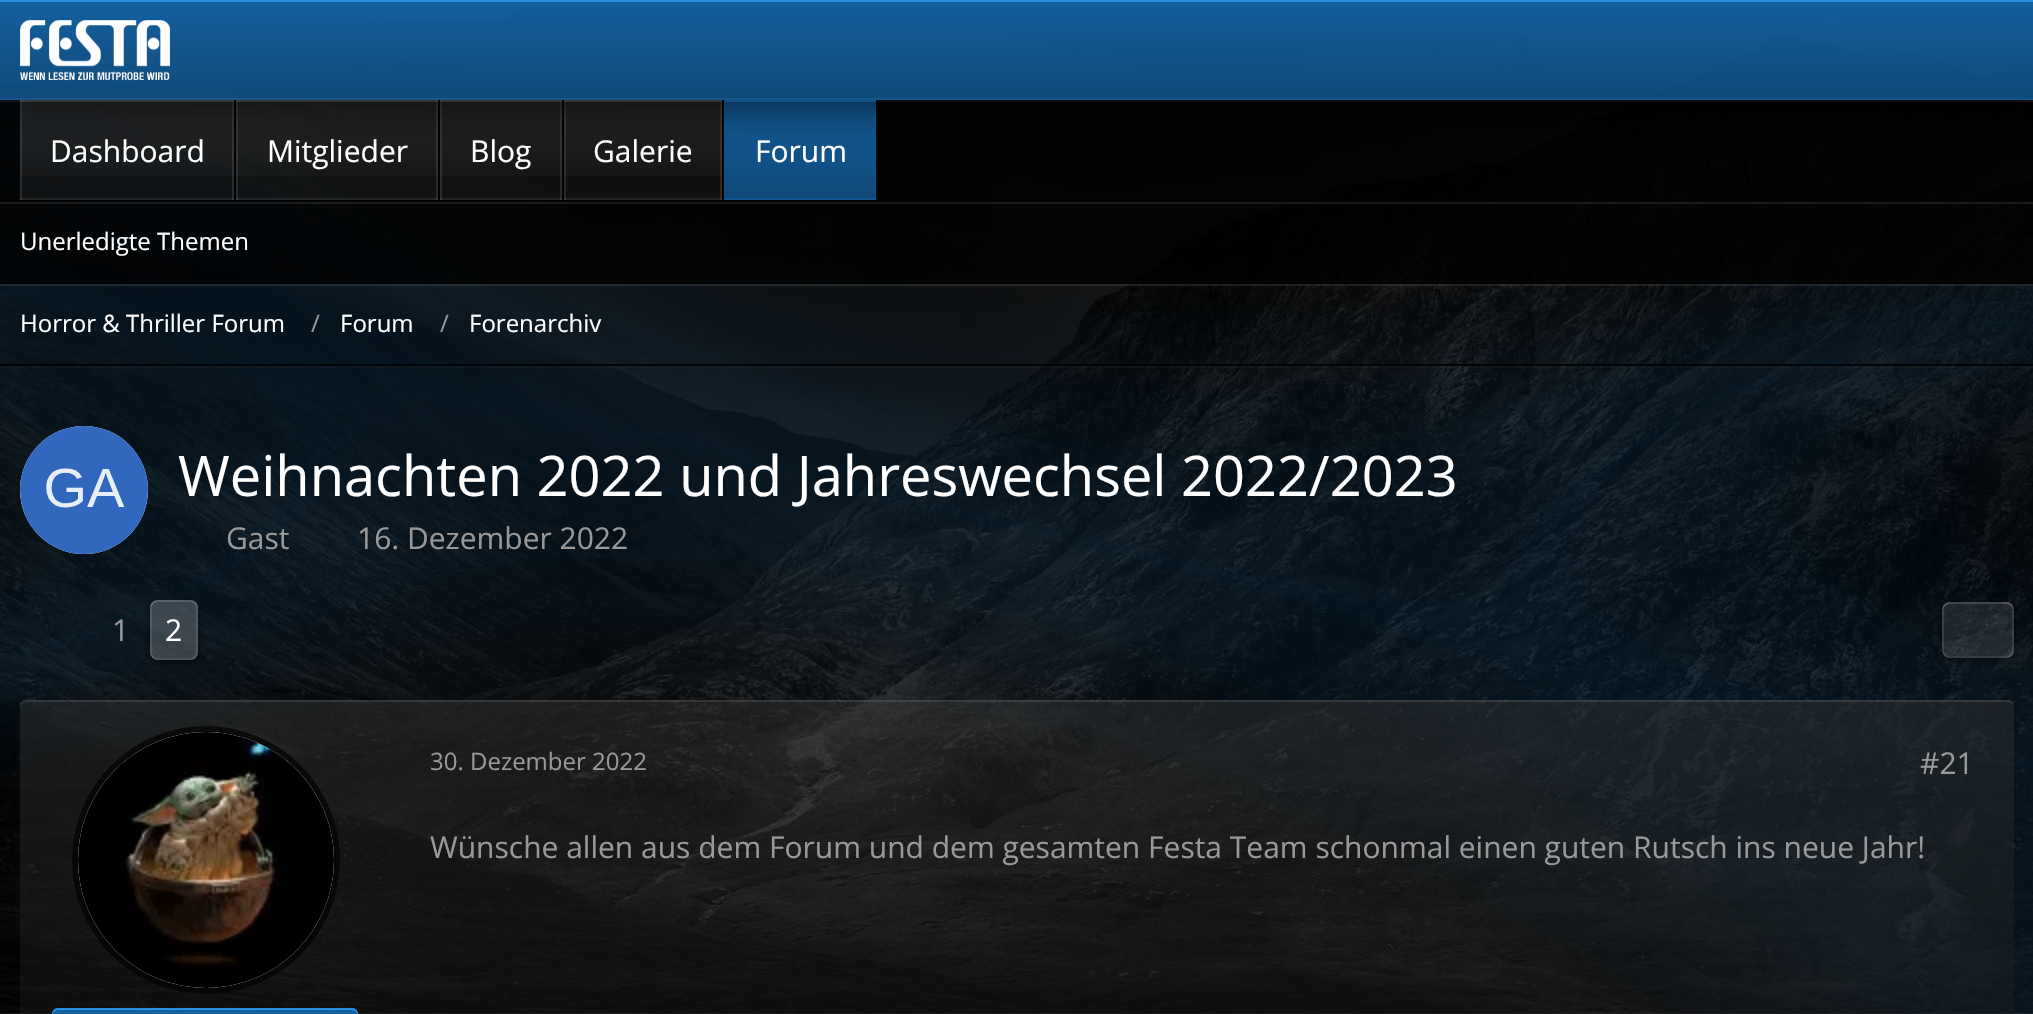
void draw(SkCanvas* canvas) {
    SkPaint paint;
    paint.setAntiAlias(true);
    auto face = [&](const char* family, int weight, float size, bool italic = false) {
        SkFontStyle style(weight, SkFontStyle::kNormal_Width,
            italic ? SkFontStyle::kItalic_Slant : SkFontStyle::kUpright_Slant);
        SkFont result(fontMgr->matchFamilyStyle(family, style), size);
        result.setSubpixel(true);
        return result;
    };
    auto write = [&](const char* s, float x, float y, const SkFont& font, SkColor color) {
        SkPaint ink(SkColor4f::FromColor(color));
        ink.setAntiAlias(true);
        canvas->drawString(s, x, y, font, ink);
    };
    auto block = [&](float x, float y, float w, float h, SkColor color) {
        SkPaint ink(SkColor4f::FromColor(color));
        ink.setAntiAlias(true);
        canvas->drawRect(SkRect::MakeXYWH(x, y, w, h), ink);
    };
    auto card = [&](float x, float y, float w, float h, float radius, SkColor color) {
        SkPaint ink(SkColor4f::FromColor(color));
        ink.setAntiAlias(true);
        canvas->drawRoundRect(SkRect::MakeXYWH(x, y, w, h), radius, radius, ink);
    };
    auto paste = [&](const char* path, float x, float y, float w, float h) {
        auto image = SkImages::DeferredFromEncodedData(SkData::MakeFromFileName(path));
        canvas->drawImageRect(image, SkRect::MakeXYWH(x, y, w, h), SkSamplingOptions());
    };
    canvas->clear(SK_ColorWHITE);
    paste("pic1.png", 0, 2, 2033, 1012);
    block(0, 2, 2033, 282, SkColorSetARGB(204, 0, 0, 0));
    block(0, 100, 2033, 102, SkColorSetARGB(179, 0, 0, 0));
    block(0, 100, 2033, 2, SkColorSetARGB(23, 255, 255, 255));
    block(20, 100, 216, 100, SkColorSetARGB(13, 255, 255, 255));
    {
        const SkColor colors[] = {SkColorSetARGB(23, 255, 255, 255), SkColorSetARGB(0, 255, 255, 255)};
        const float stops[] = {0, 1};
        const SkPoint ends[] = {{127, 100}, {127, 200}};
        paint.setShader(SkGradientShader::MakeLinear(ends, colors, stops, 2, SkTileMode::kClamp));
        paint.setAlpha(255);
    }
    canvas->drawRect(SkRect::MakeXYWH(20, 100, 216, 76), paint);
    block(20, 100, 2, 100, SkColorSetARGB(26, 255, 255, 255));
    block(232, 100, 2, 100, SkColorSetARGB(26, 255, 255, 255));
    block(20, 100, 214, 2, SkColorSetARGB(38, 255, 255, 255));
    block(234, 100, 2, 100, SkColorSetARGB(230, 0, 0, 0));
    block(236, 100, 204, 100, SkColorSetARGB(13, 255, 255, 255));
    {
        const SkColor colors[] = {SkColorSetARGB(23, 255, 255, 255), SkColorSetARGB(0, 255, 255, 255)};
        const float stops[] = {0, 1};
        const SkPoint ends[] = {{337, 100}, {337, 200}};
        paint.setShader(SkGradientShader::MakeLinear(ends, colors, stops, 2, SkTileMode::kClamp));
        paint.setAlpha(255);
    }
    canvas->drawRect(SkRect::MakeXYWH(236, 100, 204, 76), paint);
    block(236, 100, 2, 100, SkColorSetARGB(26, 255, 255, 255));
    block(436, 100, 2, 100, SkColorSetARGB(26, 255, 255, 255));
    block(236, 100, 202, 2, SkColorSetARGB(38, 255, 255, 255));
    block(438, 100, 2, 100, SkColorSetARGB(230, 0, 0, 0));
    block(440, 100, 124, 100, SkColorSetARGB(13, 255, 255, 255));
    {
        const SkColor colors[] = {SkColorSetARGB(23, 255, 255, 255), SkColorSetARGB(0, 255, 255, 255)};
        const float stops[] = {0, 1};
        const SkPoint ends[] = {{501, 100}, {501, 200}};
        paint.setShader(SkGradientShader::MakeLinear(ends, colors, stops, 2, SkTileMode::kClamp));
        paint.setAlpha(255);
    }
    canvas->drawRect(SkRect::MakeXYWH(440, 100, 124, 76), paint);
    block(440, 100, 2, 100, SkColorSetARGB(26, 255, 255, 255));
    block(560, 100, 2, 100, SkColorSetARGB(26, 255, 255, 255));
    block(440, 100, 122, 2, SkColorSetARGB(38, 255, 255, 255));
    block(562, 100, 2, 100, SkColorSetARGB(230, 0, 0, 0));
    block(564, 100, 160, 100, SkColorSetARGB(13, 255, 255, 255));
    {
        const SkColor colors[] = {SkColorSetARGB(23, 255, 255, 255), SkColorSetARGB(0, 255, 255, 255)};
        const float stops[] = {0, 1};
        const SkPoint ends[] = {{643, 100}, {643, 200}};
        paint.setShader(SkGradientShader::MakeLinear(ends, colors, stops, 2, SkTileMode::kClamp));
        paint.setAlpha(255);
    }
    canvas->drawRect(SkRect::MakeXYWH(564, 100, 160, 76), paint);
    block(564, 100, 2, 100, SkColorSetARGB(26, 255, 255, 255));
    block(720, 100, 2, 100, SkColorSetARGB(26, 255, 255, 255));
    block(564, 100, 158, 2, SkColorSetARGB(38, 255, 255, 255));
    block(722, 100, 2, 100, SkColorSetARGB(230, 0, 0, 0));
    block(724, 100, 154, 2, SkColorSetARGB(102, 0, 0, 0));
    {
        const SkColor colors[] = {SkColorSetARGB(204, 23, 118, 196), SkColorSetARGB(153, 23, 118, 196)};
        const float stops[] = {0, 1};
        const SkPoint ends[] = {{800, 100}, {800, 200}};
        paint.setShader(SkGradientShader::MakeLinear(ends, colors, stops, 2, SkTileMode::kClamp));
        paint.setAlpha(255);
    }
    canvas->drawRect(SkRect::MakeXYWH(724, 100, 154, 100), paint);
    block(724, 100, 152, 2, SkColorSetRGB(40, 144, 230));
    block(876, 100, 2, 100, SkColorSetARGB(230, 0, 0, 0));
    canvas->save();
    canvas->clipRect(SkRect::MakeXYWH(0, 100, 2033, 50));
    paint.setShader(nullptr);
    paint.setColor(SkColorSetARGB(230, 0, 0, 0));
    paint.setMaskFilter(SkMaskFilter::MakeBlur(kNormal_SkBlurStyle, 25));
    canvas->drawRect(SkRect::MakeXYWH(0, 0, 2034, 100), paint);
    paint.setMaskFilter(nullptr);
    canvas->restore();
    block(0, 2, 2033, 98, SkColorSetARGB(179, 0, 0, 0));
    {
        const SkColor colors[] = {SkColorSetARGB(204, 23, 118, 196), SkColorSetARGB(153, 23, 118, 196)};
        const float stops[] = {0, 1};
        const SkPoint ends[] = {{1017, 0}, {1017, 100}};
        paint.setShader(SkGradientShader::MakeLinear(ends, colors, stops, 2, SkTileMode::kClamp));
        paint.setAlpha(255);
    }
    canvas->drawRect(SkRect::MakeXYWH(0, 2, 2033, 98), paint);
    block(0, 98, 2033, 2, SkColorSetARGB(77, 23, 118, 196));
    block(0, 0, 2033, 2, SkColorSetRGB(40, 144, 230));
    paste("pic2.png", 20, 20, 150, 60);
    block(0, 200, 2033, 2, SkColorSetARGB(230, 0, 0, 0));
    block(20, 198, 214, 2, SkColorSetARGB(20, 255, 255, 255));
    auto kFont1 = face("Open Sans", 400, 30);
    write("Dashboard", 50, 162, kFont1, SK_ColorWHITE);
    block(236, 198, 202, 2, SkColorSetARGB(20, 255, 255, 255));
    write("Mitglieder", 267, 162, kFont1, SK_ColorWHITE);
    block(440, 198, 122, 2, SkColorSetARGB(20, 255, 255, 255));
    write("Blog", 470, 162, kFont1, SK_ColorWHITE);
    block(564, 198, 158, 2, SkColorSetARGB(20, 255, 255, 255));
    write("Galerie", 593, 162, kFont1, SK_ColorWHITE);
    block(724, 198, 152, 2, SkColorSetRGB(17, 86, 142));
    write("Forum", 755, 162, kFont1, SK_ColorWHITE);
    block(0, 202, 2033, 82, SkColorSetARGB(179, 0, 0, 0));
    block(0, 202, 2033, 2, SkColorSetARGB(23, 255, 255, 255));
    block(0, 282, 2033, 2, SkColorSetARGB(230, 0, 0, 0));
    auto kFont2 = face("Open Sans", 400, 24);
    write("Unerledigte Themen", 20, 250, kFont2, SK_ColorWHITE);
    block(0, 366, 2033, 2, SkColorSetARGB(23, 255, 255, 255));
    block(0, 284, 2033, 82, SkColorSetARGB(179, 0, 0, 0));
    block(0, 284, 2033, 2, SkColorSetARGB(23, 255, 255, 255));
    block(0, 364, 2033, 2, SkColorSetARGB(230, 0, 0, 0));
    write("Horror & Thriller Forum", 20, 332, kFont2, SK_ColorWHITE);
    write("/", 311, 332, kFont2, SkColorSetRGB(153, 153, 153));
    write("Forum", 340, 332, kFont2, SK_ColorWHITE);
    write("/", 440, 332, kFont2, SkColorSetRGB(153, 153, 153));
    write("Forenarchiv", 469, 332, kFont2, SK_ColorWHITE);
    block(0, 366, 2033, 648, SkColorSetARGB(179, 0, 0, 0));
    paint.setShader(nullptr);
    paint.setColor(SK_ColorWHITE);
    canvas->drawCircle(84, 490, 64, paint);
    paste("pic3.png", 20, 426, 128, 128);
    auto kFont3 = face("Open Sans", 400, 56);
    write("Weihnachten 2022 und Jahreswechsel 2022/2023", 178, 496, kFont3, SK_ColorWHITE);
    write("Gast", 226, 549, kFont1, SkColorSetRGB(153, 153, 153));
    write("16. Dezember 2022", 357, 549, kFont1, SkColorSetRGB(153, 153, 153));
    write("1", 112, 641, kFont1, SkColorSetRGB(153, 153, 153));
    canvas->save();
    canvas->clipPath(SkPathBuilder(SkPathFillType::kEvenOdd).moveTo(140, 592).lineTo(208, 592).lineTo(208, 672).lineTo(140, 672).close().moveTo(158, 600).lineTo(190, 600).cubicTo(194.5f, 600, 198, 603.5f, 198, 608).lineTo(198, 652).cubicTo(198, 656.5f, 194.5f, 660, 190, 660).lineTo(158, 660).cubicTo(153.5f, 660, 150, 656.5f, 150, 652).lineTo(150, 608).cubicTo(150, 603.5f, 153.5f, 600, 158, 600).close().detach(), true);
    paint.setColor(SkColorSetARGB(128, 0, 0, 0));
    paint.setMaskFilter(SkMaskFilter::MakeBlur(kNormal_SkBlurStyle, 3));
    canvas->drawRoundRect(SkRect::MakeXYWH(150, 602, 48, 60), 8, 8, paint);
    paint.setMaskFilter(nullptr);
    canvas->restore();
    card(150, 600, 48, 60, 8, SkColorSetARGB(51, 255, 255, 255));
    paint.setColor(SkColorSetARGB(26, 255, 255, 255));
    canvas->drawPath(SkPathBuilder().moveTo(158, 600).cubicTo(154, 600, 150, 604, 150, 608).lineTo(150, 652).cubicTo(150, 656, 154, 660, 158, 660).lineTo(160, 660).cubicTo(156, 660, 152, 656, 152, 652).lineTo(152, 608).cubicTo(152, 604, 156, 600, 160, 600).close().moveTo(188, 660).cubicTo(199, 660, 198, 653, 198, 645).lineTo(198, 615).cubicTo(198, 607, 199, 600, 188, 600).cubicTo(192, 600, 196, 604, 196, 608).lineTo(196, 652).cubicTo(196, 656, 192, 660, 188, 660).close().detach(), paint);
    paint.setColor(SkColorSetARGB(20, 255, 255, 255));
    canvas->drawPath(SkPathBuilder().moveTo(150, 650).cubicTo(150, 660, 155, 660, 163, 660).lineTo(185, 660).cubicTo(193, 660, 198, 660, 198, 650).cubicTo(198, 654, 194, 658, 190, 658).lineTo(158, 658).cubicTo(154, 658, 150, 654, 150, 650).close().detach(), paint);
    paint.setColor(SkColorSetARGB(38, 255, 255, 255));
    canvas->drawPath(SkPathBuilder().moveTo(158, 602).lineTo(190, 602).cubicTo(194, 602, 198, 606, 198, 610).cubicTo(198, 600, 193, 600, 185, 600).lineTo(163, 600).cubicTo(155, 600, 150, 600, 150, 610).cubicTo(150, 606, 154, 602, 158, 602).close().detach(), paint);
    write("2", 165, 641, kFont1, SK_ColorWHITE);
    canvas->save();
    canvas->clipPath(SkPathBuilder(SkPathFillType::kEvenOdd).moveTo(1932, 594).lineTo(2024, 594).lineTo(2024, 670).lineTo(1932, 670).close().moveTo(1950, 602).lineTo(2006, 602).cubicTo(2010.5f, 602, 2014, 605.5f, 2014, 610).lineTo(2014, 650).cubicTo(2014, 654.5f, 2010.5f, 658, 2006, 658).lineTo(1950, 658).cubicTo(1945.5f, 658, 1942, 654.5f, 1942, 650).lineTo(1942, 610).cubicTo(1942, 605.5f, 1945.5f, 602, 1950, 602).close().detach(), true);
    paint.setColor(SkColorSetARGB(128, 0, 0, 0));
    paint.setMaskFilter(SkMaskFilter::MakeBlur(kNormal_SkBlurStyle, 3));
    canvas->drawRoundRect(SkRect::MakeXYWH(1942, 604, 72, 56), 8, 8, paint);
    paint.setMaskFilter(nullptr);
    canvas->restore();
    card(1942, 602, 72, 56, 8, SkColorSetARGB(26, 255, 255, 255));
    paint.setColor(SkColorSetARGB(26, 255, 255, 255));
    canvas->drawPath(SkPathBuilder().moveTo(1950, 602).cubicTo(1946, 602, 1942, 606, 1942, 610).lineTo(1942, 650).cubicTo(1942, 654, 1946, 658, 1950, 658).lineTo(1952, 658).cubicTo(1948, 658, 1944, 654, 1944, 650).lineTo(1944, 610).cubicTo(1944, 606, 1948, 602, 1952, 602).close().detach(), paint);
    canvas->drawPath(SkPathBuilder().moveTo(2004, 658).cubicTo(2014, 658, 2014, 652, 2014, 643).lineTo(2014, 617).cubicTo(2014, 608, 2014, 602, 2004, 602).cubicTo(2008, 602, 2012, 606, 2012, 610).lineTo(2012, 650).cubicTo(2012, 654, 2008, 658, 2004, 658).close().detach(), paint);
    paint.setColor(SkColorSetARGB(20, 255, 255, 255));
    canvas->drawPath(SkPathBuilder().moveTo(1942, 648).cubicTo(1942, 660, 1950, 658, 1959, 658).lineTo(1997, 658).cubicTo(2006, 658, 2014, 660, 2014, 648).cubicTo(2014, 652, 2010, 656, 2006, 656).lineTo(1950, 656).cubicTo(1946, 656, 1942, 652, 1942, 648).close().detach(), paint);
    paint.setColor(SkColorSetARGB(38, 255, 255, 255));
    canvas->drawPath(SkPathBuilder().moveTo(1950, 604).lineTo(2006, 604).cubicTo(2010, 604, 2014, 608, 2014, 612).cubicTo(2014, 600, 2006, 602, 1997, 602).lineTo(1959, 602).cubicTo(1950, 602, 1942, 600, 1942, 612).cubicTo(1942, 608, 1946, 604, 1950, 604).close().detach(), paint);
    card(20, 700, 1994, 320, 6, SkColorSetARGB(102, 0, 0, 0));
    {
        const SkColor colors[] = {SkColorSetARGB(23, 255, 255, 255), SkColorSetARGB(0, 255, 255, 255)};
        const float stops[] = {0, 1};
        const SkPoint ends[] = {{1017, 700}, {1017, 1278}};
        paint.setShader(SkGradientShader::MakeLinear(ends, colors, stops, 2, SkTileMode::kClamp));
        paint.setAlpha(255);
    }
    canvas->drawRoundRect(SkRect::MakeXYWH(20, 700, 1994, 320), 6, 6, paint);
    paint.setShader(nullptr);
    paint.setColor(SkColorSetARGB(26, 255, 255, 255));
    canvas->drawPath(SkPathBuilder().moveTo(26, 702).lineTo(2008, 702).cubicTo(2011, 702, 2014, 705, 2014, 708).cubicTo(2014, 704, 2013, 700, 2008, 700).lineTo(26, 700).cubicTo(21, 700, 20, 704, 20, 708).cubicTo(20, 705, 23, 702, 26, 702).close().detach(), paint);
    paint.setStyle(SkPaint::kStroke_Style);
    paint.setStrokeWidth(6);
    paint.setColor(SkColorSetARGB(179, 0, 0, 0));
    canvas->drawCircle(206, 860, 131, paint);
    paint.setStyle(SkPaint::kFill_Style);
    paint.setColor(SK_ColorWHITE);
    canvas->drawCircle(206, 860, 128, paint);
    paste("pic4.png", 78, 732, 256, 256);
    {
        const SkColor colors[] = {SkColorSetARGB(204, 23, 118, 196), SkColorSetARGB(153, 23, 118, 196)};
        const float stops[] = {0, 1};
        const SkPoint ends[] = {{205, 1008}, {205, 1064}};
        paint.setShader(SkGradientShader::MakeLinear(ends, colors, stops, 2, SkTileMode::kClamp));
        paint.setAlpha(255);
    }
    canvas->drawRoundRect(SkRect::MakeXYWH(52, 1008, 306, 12), 6, 6, paint);
    paint.setShader(nullptr);
    paint.setColor(SkColorSetRGB(40, 144, 230));
    canvas->drawPath(SkPathBuilder().moveTo(58, 1010).lineTo(352, 1010).cubicTo(355, 1010, 358, 1013, 358, 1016).lineTo(358, 1014).cubicTo(358, 1011, 355, 1008, 352, 1008).lineTo(58, 1008).cubicTo(55, 1008, 52, 1011, 52, 1014).lineTo(52, 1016).cubicTo(52, 1013, 55, 1010, 58, 1010).close().detach(), paint);
    write("30. Dezember 2022", 430, 770, kFont2, SkColorSetRGB(153, 153, 153));
    write("#21", 1920, 774, kFont1, SkColorSetRGB(153, 153, 153));
    write("Wünsche allen aus dem Forum und dem gesamten Festa Team schonmal einen guten Rutsch ins neue Jahr!", 430, 858, kFont1, SkColorSetRGB(153, 153, 153));
}
